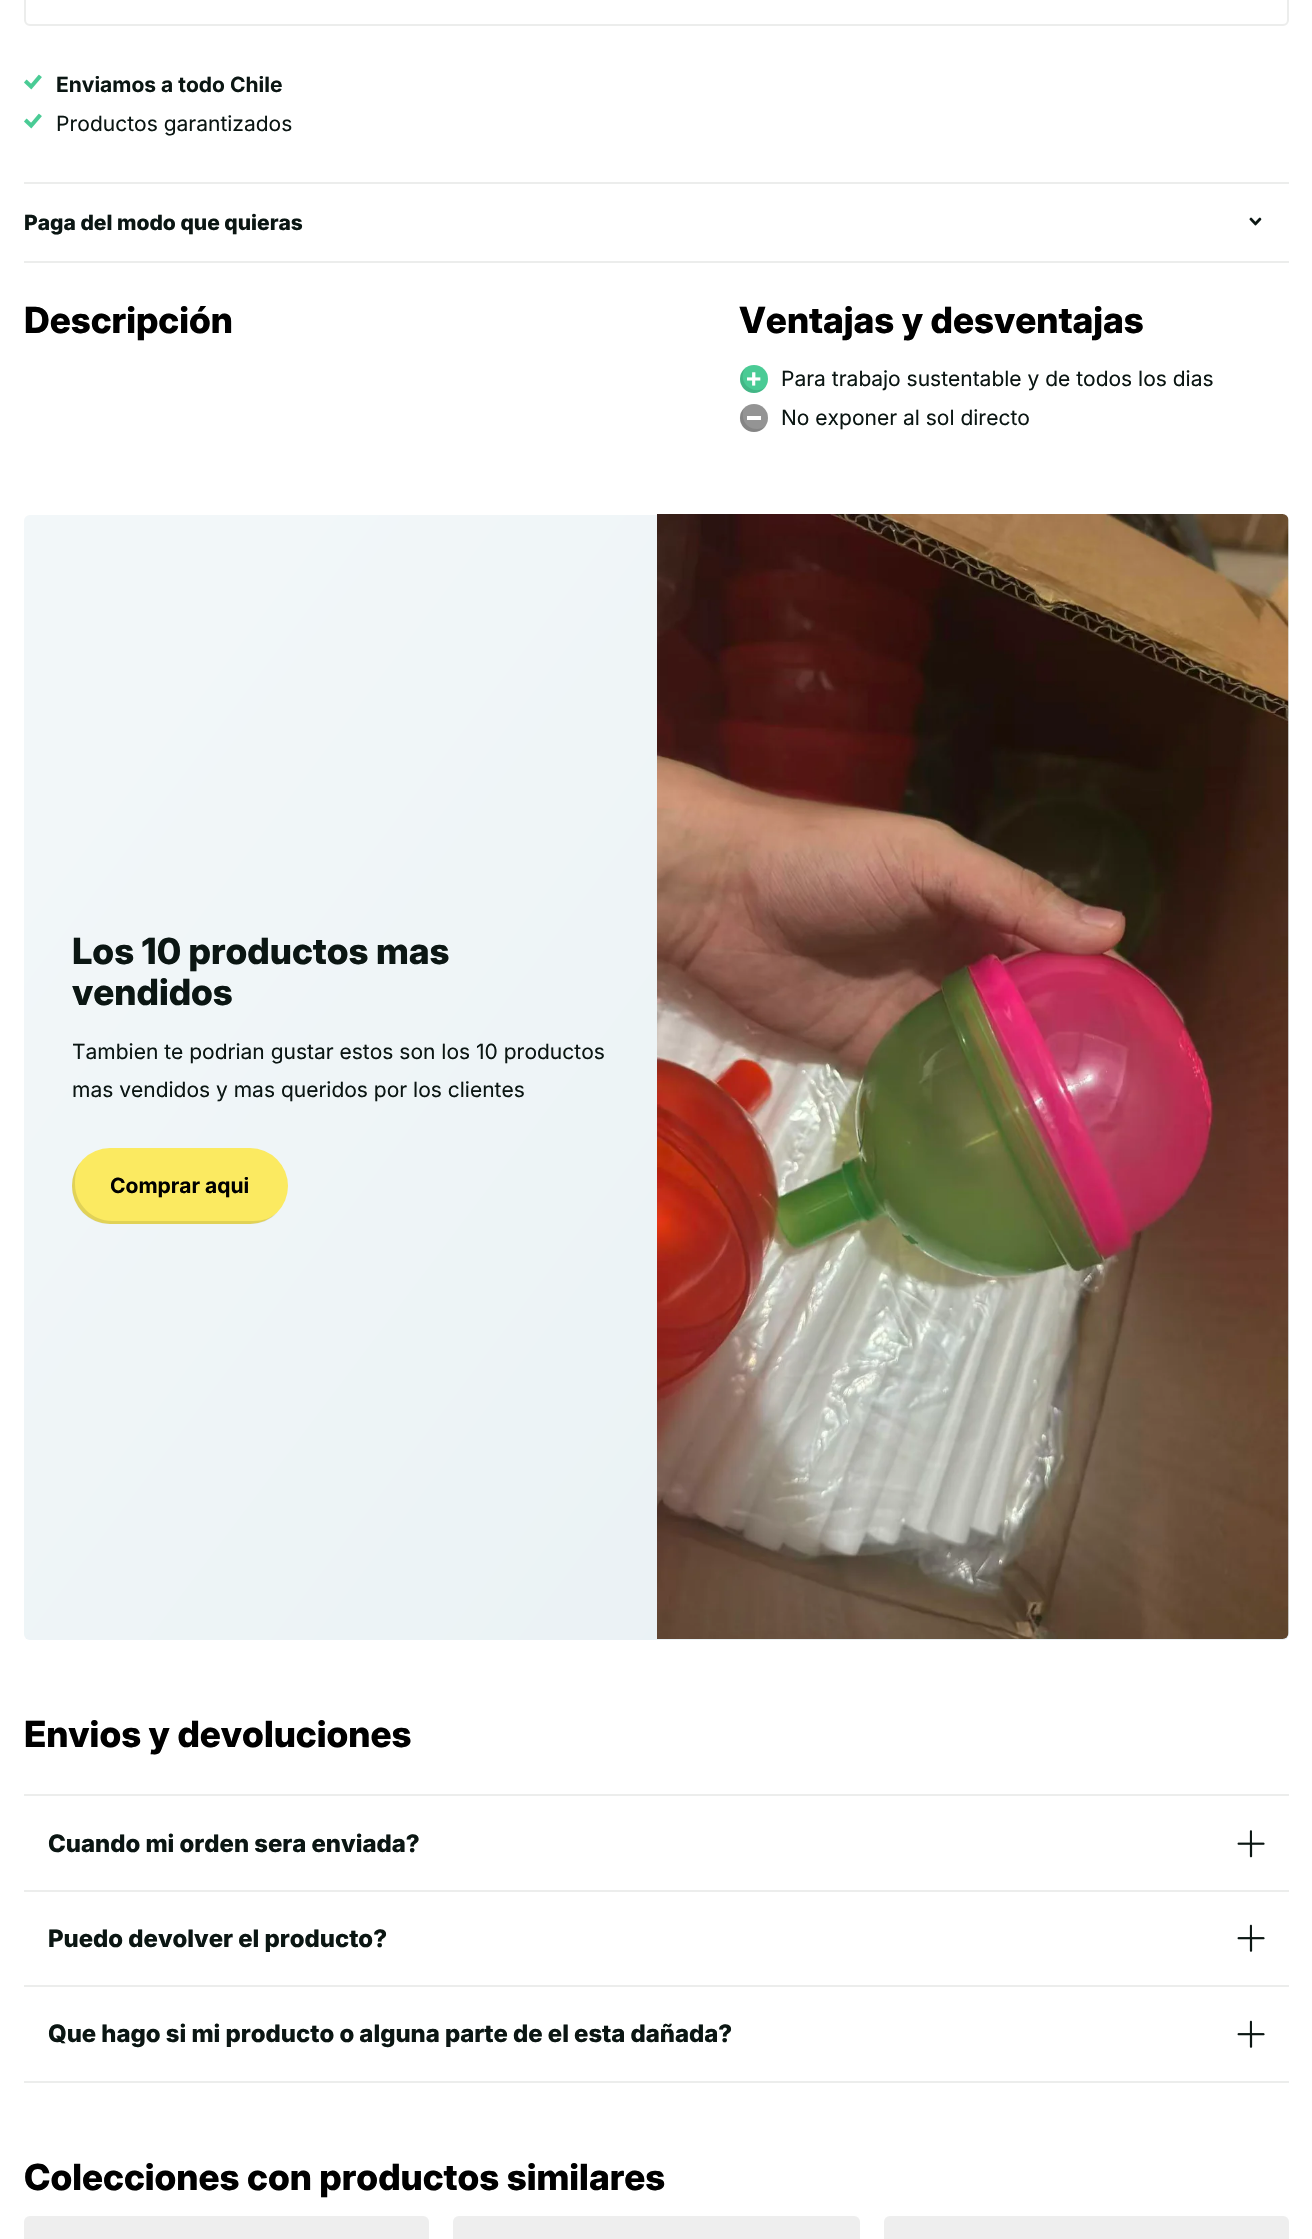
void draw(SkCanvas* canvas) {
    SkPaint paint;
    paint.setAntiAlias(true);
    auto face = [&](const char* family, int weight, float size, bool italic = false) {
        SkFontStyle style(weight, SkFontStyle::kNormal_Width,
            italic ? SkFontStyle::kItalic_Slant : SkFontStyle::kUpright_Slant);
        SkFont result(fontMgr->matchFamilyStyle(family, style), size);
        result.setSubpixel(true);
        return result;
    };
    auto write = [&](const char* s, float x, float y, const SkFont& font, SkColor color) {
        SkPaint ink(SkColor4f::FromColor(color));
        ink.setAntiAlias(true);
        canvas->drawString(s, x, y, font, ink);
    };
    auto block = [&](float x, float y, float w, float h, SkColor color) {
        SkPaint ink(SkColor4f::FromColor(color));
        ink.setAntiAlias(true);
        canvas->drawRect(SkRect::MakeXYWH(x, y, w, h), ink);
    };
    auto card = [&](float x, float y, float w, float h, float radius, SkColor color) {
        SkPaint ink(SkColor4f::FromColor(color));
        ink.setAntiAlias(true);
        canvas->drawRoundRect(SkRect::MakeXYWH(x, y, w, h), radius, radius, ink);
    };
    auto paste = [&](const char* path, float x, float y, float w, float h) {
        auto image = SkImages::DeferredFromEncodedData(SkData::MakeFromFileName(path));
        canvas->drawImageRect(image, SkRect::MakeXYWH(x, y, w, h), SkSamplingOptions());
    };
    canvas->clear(SK_ColorWHITE);
    paint.setStyle(SkPaint::kStroke_Style);
    paint.setStrokeWidth(2);
    paint.setColor(SkColorSetRGB(236, 237, 236));
    canvas->drawRoundRect(SkRect::MakeXYWH(25, -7, 1263, 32), 5, 5, paint);
    paste("pic1.png", 24, 74, 18, 16);
    auto kFont1 = face("Inter", 700, 21);
    write("Enviamos a todo Chile", 56, 92, kFont1, SkColorSetRGB(11, 22, 19));
    paste("pic1.png", 24, 113, 18, 16);
    auto kFont2 = face("Inter", 400, 21);
    write("Productos garantizados", 56, 131, kFont2, SkColorSetRGB(11, 22, 19));
    block(24, 182, 1265, 2, SkColorSetRGB(236, 237, 236));
    block(24, 261, 1265, 2, SkColorSetRGB(236, 237, 236));
    auto kFont3 = face("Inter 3", 800, 21);
    write("Paga del modo que quieras", 24, 230, kFont3, SkColorSetRGB(11, 22, 19));
    paste("pic2.png", 1249, 217, 13, 9);
    auto kFont4 = face("Inter", 800, 36);
    write("Descripción", 24, 333, kFont4, SK_ColorBLACK);
    write("Ventajas y desventajas", 739, 333, kFont4, SK_ColorBLACK);
    paint.setStyle(SkPaint::kFill_Style);
    paint.setColor(SkColorSetRGB(74, 203, 149));
    canvas->drawCircle(754, 379, 14, paint);
    paint.setColor(SkColorSetARGB(26, 0, 0, 0));
    canvas->drawPath(SkPathBuilder().moveTo(765, 387.5f).cubicTo(753.5f, 396, 736.5f, 382.5f, 745, 368.5f).cubicTo(739, 373.5f, 738.5f, 383, 744, 389).cubicTo(750, 395, 760, 394, 765, 387.5f).close().detach(), paint);
    paste("pic3.png", 747, 372, 14, 14);
    write("Para trabajo sustentable y de todos los dias", 781, 386, kFont2, SkColorSetRGB(11, 22, 19));
    paint.setColor(SkColorSetRGB(148, 148, 148));
    canvas->drawCircle(754, 418, 14, paint);
    paint.setColor(SkColorSetARGB(26, 0, 0, 0));
    canvas->drawPath(SkPathBuilder().moveTo(765.5f, 426.5f).cubicTo(763, 428, 760.5f, 429, 757, 429).cubicTo(744.5f, 429, 740.5f, 416.5f, 744, 408).cubicTo(738.5f, 413.5f, 738.5f, 422.5f, 744, 428).cubicTo(750, 434, 760.5f, 433, 765.5f, 426.5f).close().detach(), paint);
    block(747, 416, 14, 4, SK_ColorWHITE);
    write("No exponer al sol directo", 781, 425, kFont2, SkColorSetRGB(11, 22, 19));
    {
        const SkColor colors[] = {SkColorSetRGB(242, 247, 249), SkColorSetRGB(233, 241, 244)};
        const float stops[] = {0.11f, 0.81f};
        const SkPoint ends[] = {{-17, 569}, {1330, 1585}};
        paint.setShader(SkGradientShader::MakeLinear(ends, colors, stops, 2, SkTileMode::kClamp));
        paint.setAlpha(255);
    }
    canvas->drawRoundRect(SkRect::MakeXYWH(24, 515, 1265, 1125), 6, 6, paint);
    paste("pic4.png", 657, 514, 632, 1125);
    write("Los 10 productos mas", 72, 964, kFont4, SkColorSetRGB(11, 22, 19));
    write("vendidos", 72, 1005, kFont4, SkColorSetRGB(11, 22, 19));
    write("Tambien te podrian gustar estos son los 10 productos", 72, 1059, kFont2, SkColorSetRGB(11, 22, 19));
    write("mas vendidos y mas queridos por los clientes", 72, 1097, kFont2, SkColorSetRGB(11, 22, 19));
    card(72, 1148, 216, 76, 38, SkColorSetRGB(251, 234, 97));
    paint.setShader(nullptr);
    paint.setColor(SkColorSetARGB(26, 0, 0, 0));
    canvas->drawPath(SkPathBuilder().moveTo(81, 1162).cubicTo(75, 1168, 72, 1177, 72, 1186).cubicTo(72, 1207, 89, 1224, 110, 1224).lineTo(250, 1224).cubicTo(261, 1224, 270, 1220, 277, 1213).cubicTo(271, 1218, 263, 1221, 254, 1221).lineTo(112, 1221).cubicTo(92, 1221, 75, 1204, 75, 1184).lineTo(75, 1182).cubicTo(75, 1174, 77, 1167, 81, 1162).close().detach(), paint);
    write("Comprar aqui", 110, 1193, kFont1, SK_ColorBLACK);
    write("Envios y devoluciones", 24, 1747, kFont4, SK_ColorBLACK);
    block(24, 1794, 1265, 2, SkColorSetRGB(236, 237, 236));
    auto kFont5 = face("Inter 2", 800, 24);
    write("Cuando mi orden sera enviada?", 48, 1852, kFont5, SkColorSetRGB(11, 22, 19));
    paste("pic5.png", 1237, 1830, 28, 28);
    block(24, 1890, 1265, 2, SkColorSetRGB(236, 237, 236));
    write("Puedo devolver el producto?", 48, 1947, kFont5, SkColorSetRGB(11, 22, 19));
    paste("pic6.png", 1237, 1924, 28, 28);
    block(24, 1985, 1265, 2, SkColorSetRGB(236, 237, 236));
    block(24, 2081, 1265, 2, SkColorSetRGB(236, 237, 236));
    write("Que hago si mi producto o alguna parte de el esta dañada?", 48, 2042, kFont5, SkColorSetRGB(11, 22, 19));
    paste("pic6.png", 1237, 2020, 28, 28);
    write("Colecciones con productos similares", 24, 2190, kFont4, SK_ColorBLACK);
    card(24, 2216, 405, 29, 6, SkColorSetRGB(238, 238, 238));
    card(453, 2216, 407, 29, 6, SkColorSetRGB(238, 238, 238));
    card(884, 2216, 405, 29, 6, SkColorSetRGB(238, 238, 238));
}
